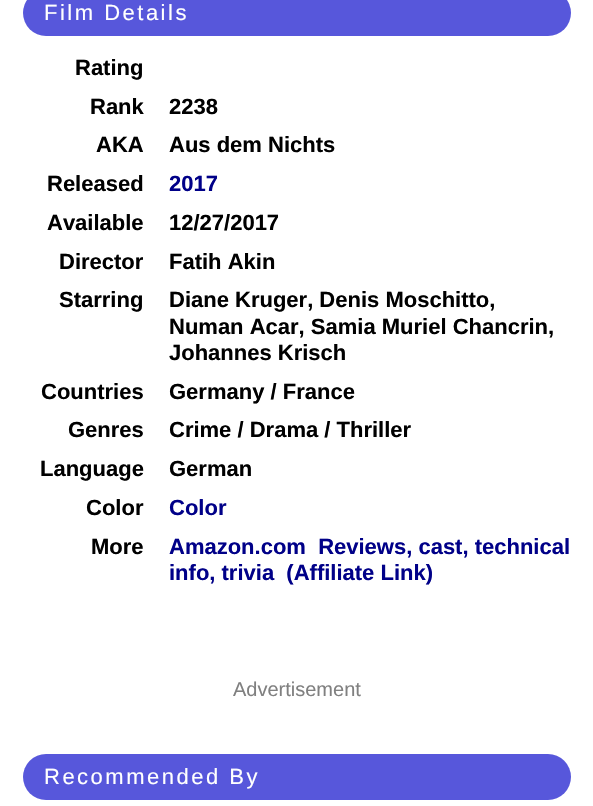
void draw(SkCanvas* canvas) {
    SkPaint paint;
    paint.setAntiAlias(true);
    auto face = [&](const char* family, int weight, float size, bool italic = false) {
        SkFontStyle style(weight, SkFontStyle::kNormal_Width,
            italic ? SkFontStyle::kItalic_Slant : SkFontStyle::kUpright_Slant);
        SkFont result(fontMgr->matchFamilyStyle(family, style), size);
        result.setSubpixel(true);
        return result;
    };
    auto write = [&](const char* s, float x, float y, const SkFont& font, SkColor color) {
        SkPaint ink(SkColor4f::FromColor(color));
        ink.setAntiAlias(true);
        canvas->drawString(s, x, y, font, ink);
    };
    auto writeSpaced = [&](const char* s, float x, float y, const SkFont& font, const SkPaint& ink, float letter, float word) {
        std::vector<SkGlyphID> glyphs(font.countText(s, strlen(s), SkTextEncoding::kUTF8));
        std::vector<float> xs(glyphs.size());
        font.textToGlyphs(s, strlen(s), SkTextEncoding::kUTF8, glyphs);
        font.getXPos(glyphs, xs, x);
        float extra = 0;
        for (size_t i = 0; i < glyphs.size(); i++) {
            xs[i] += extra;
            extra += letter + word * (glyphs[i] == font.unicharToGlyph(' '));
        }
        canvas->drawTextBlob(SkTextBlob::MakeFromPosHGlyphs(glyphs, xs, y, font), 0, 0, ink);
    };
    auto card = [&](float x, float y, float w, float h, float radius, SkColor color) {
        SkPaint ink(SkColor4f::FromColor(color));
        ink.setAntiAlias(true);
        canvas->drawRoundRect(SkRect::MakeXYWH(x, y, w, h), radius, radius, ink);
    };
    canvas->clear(SK_ColorWHITE);
    card(23, -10, 548, 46, 23, SkColorSetRGB(87, 87, 219));
    auto kFont1 = face("Liberation Sans", 400, 22);
    paint.setColor(SK_ColorWHITE);
    writeSpaced("Film Details", 44, 20, kFont1, paint, 2.5f, 0);
    auto kFont2 = face("Liberation Sans", 700, 22);
    write("Rating", 75, 75, kFont2, SK_ColorBLACK);
    write("Rank", 90, 114, kFont2, SK_ColorBLACK);
    write("2238", 169, 114, kFont2, SK_ColorBLACK);
    write("AKA", 96, 152, kFont2, SK_ColorBLACK);
    write("Aus dem Nichts", 169, 152, kFont2, SK_ColorBLACK);
    write("Released", 47, 191, kFont2, SK_ColorBLACK);
    write("2017", 169, 191, kFont2, SkColorSetRGB(0, 0, 136));
    write("Available", 47, 230, kFont2, SK_ColorBLACK);
    write("12/27/2017", 169, 230, kFont2, SK_ColorBLACK);
    write("Director", 59, 269, kFont2, SK_ColorBLACK);
    write("Fatih Akin", 169, 269, kFont2, SK_ColorBLACK);
    write("Starring", 59, 307, kFont2, SK_ColorBLACK);
    write("Diane Kruger, Denis Moschitto,", 169, 307, kFont2, SK_ColorBLACK);
    write("Numan Acar, Samia Muriel Chancrin,", 169, 334, kFont2, SK_ColorBLACK);
    write("Johannes Krisch", 169, 360, kFont2, SK_ColorBLACK);
    write("Countries", 41, 399, kFont2, SK_ColorBLACK);
    write("Germany / France", 169, 399, kFont2, SK_ColorBLACK);
    write("Genres", 68, 437, kFont2, SK_ColorBLACK);
    write("Crime / Drama / Thriller", 169, 437, kFont2, SK_ColorBLACK);
    write("Language", 40, 476, kFont2, SK_ColorBLACK);
    write("German", 169, 476, kFont2, SK_ColorBLACK);
    write("Color", 86, 515, kFont2, SK_ColorBLACK);
    write("Color", 169, 515, kFont2, SkColorSetRGB(0, 0, 136));
    write("More", 91, 554, kFont2, SK_ColorBLACK);
    write("Amazon.com  Reviews, cast, technical", 169, 554, kFont2, SkColorSetRGB(0, 0, 136));
    write("info, trivia  (Affiliate Link)", 169, 580, kFont2, SkColorSetRGB(0, 0, 136));
    auto kFont3 = face("Liberation Sans", 400, 20);
    write("Advertisement", 233, 696, kFont3, SkColorSetRGB(128, 128, 128));
    card(23, 754, 548, 46, 23, SkColorSetRGB(87, 87, 219));
    writeSpaced("Recommended By", 44, 784, kFont1, paint, 2.5f, 0);
}
